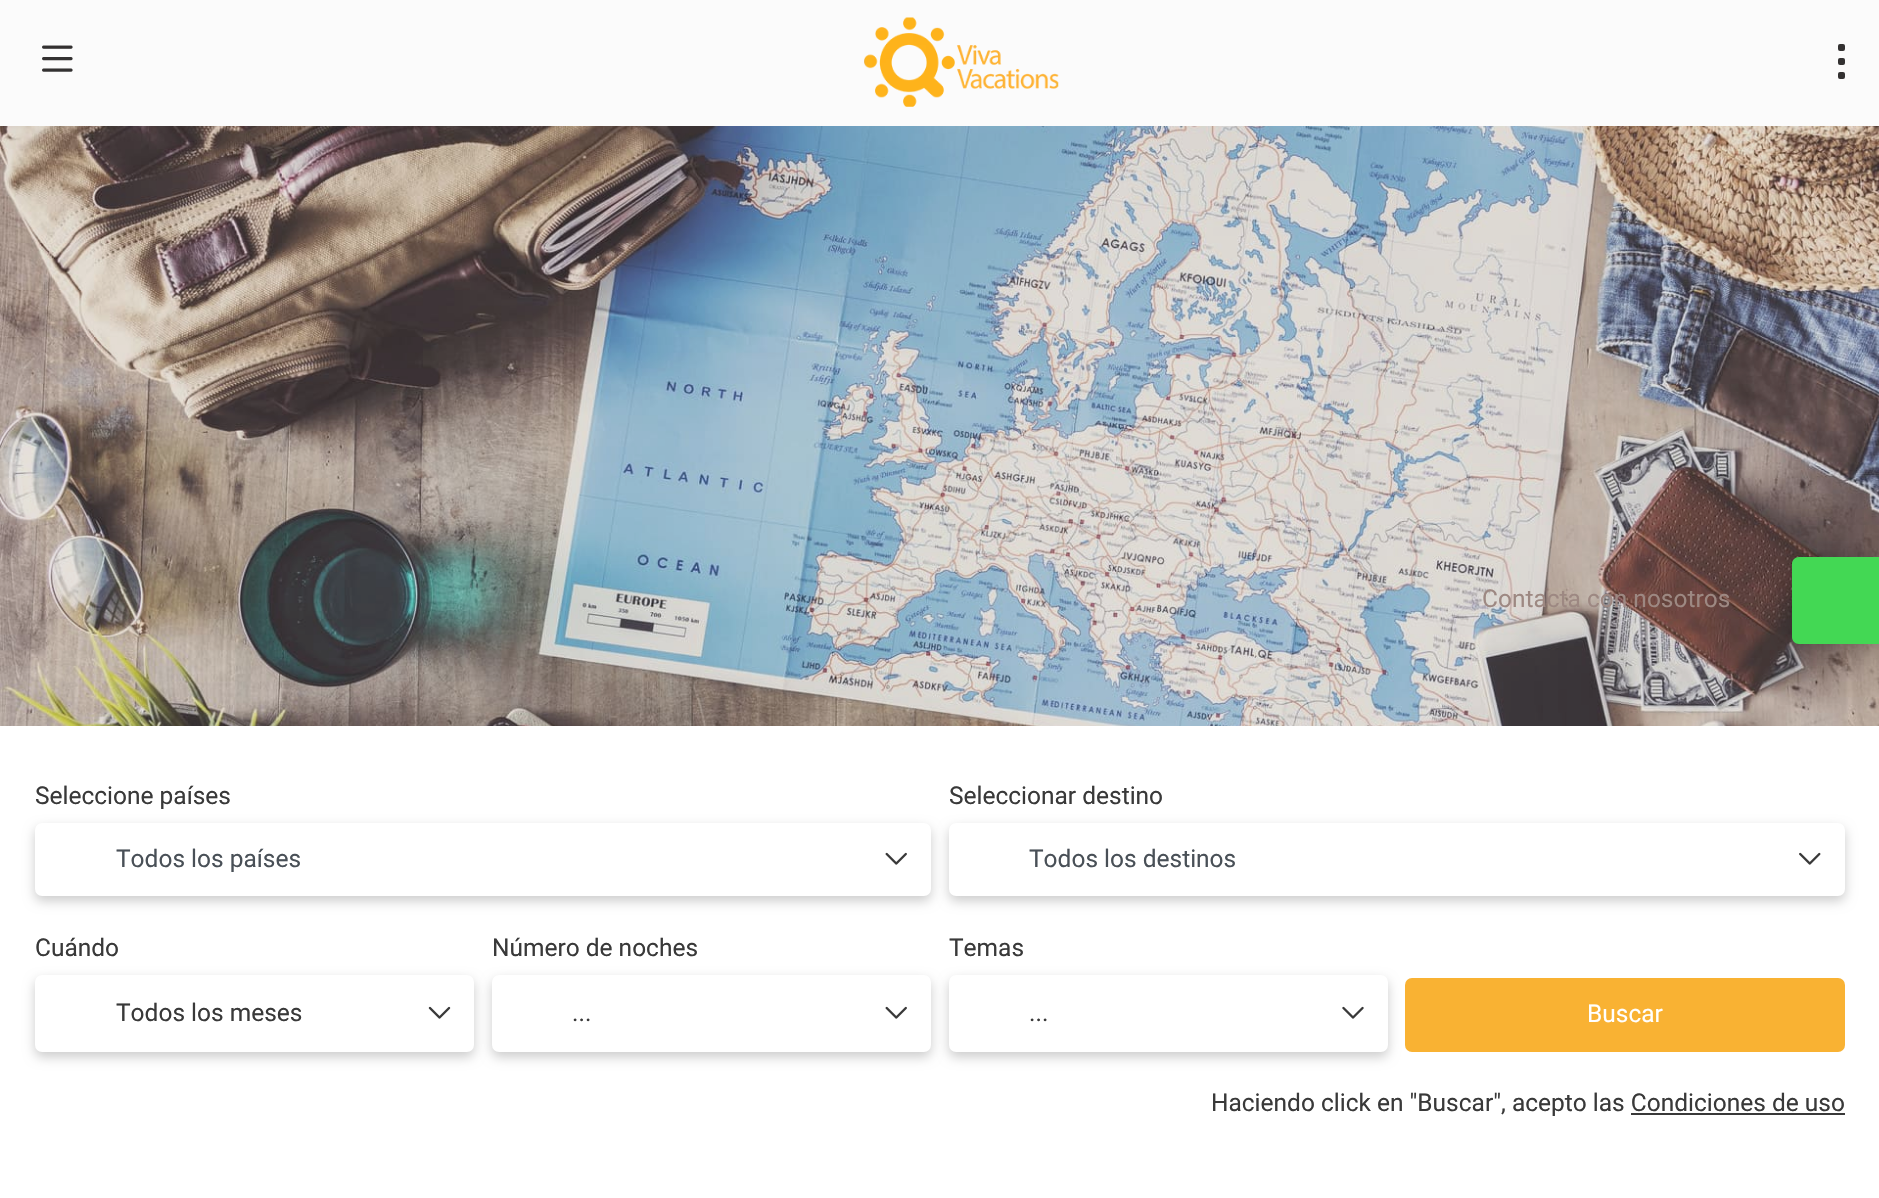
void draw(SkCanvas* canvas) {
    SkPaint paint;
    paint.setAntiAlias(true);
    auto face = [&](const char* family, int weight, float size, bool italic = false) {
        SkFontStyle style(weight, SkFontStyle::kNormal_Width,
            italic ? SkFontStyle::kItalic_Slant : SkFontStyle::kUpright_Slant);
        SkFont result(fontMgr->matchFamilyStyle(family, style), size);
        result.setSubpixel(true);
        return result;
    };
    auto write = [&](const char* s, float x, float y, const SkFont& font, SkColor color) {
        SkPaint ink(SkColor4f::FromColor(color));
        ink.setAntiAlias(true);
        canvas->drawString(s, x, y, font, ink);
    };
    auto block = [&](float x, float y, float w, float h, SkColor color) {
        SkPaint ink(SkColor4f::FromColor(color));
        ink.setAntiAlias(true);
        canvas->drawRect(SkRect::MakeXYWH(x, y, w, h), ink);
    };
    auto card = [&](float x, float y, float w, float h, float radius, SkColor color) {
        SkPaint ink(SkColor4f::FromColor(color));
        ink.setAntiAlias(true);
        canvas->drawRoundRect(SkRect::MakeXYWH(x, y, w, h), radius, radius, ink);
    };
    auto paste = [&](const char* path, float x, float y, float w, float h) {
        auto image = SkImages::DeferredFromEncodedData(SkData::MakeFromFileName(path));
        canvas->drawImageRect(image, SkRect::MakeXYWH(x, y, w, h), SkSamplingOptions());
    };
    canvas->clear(SK_ColorWHITE);
    block(0, 0, 1879, 126, SkColorSetRGB(251, 251, 251));
    paste("pic1.png", 42, 45, 31, 27);
    paste("pic2.png", 864, 17, 195, 90);
    card(1838, 44, 7, 7, 2, SkColorSetRGB(51, 49, 49));
    card(1838, 58, 7, 7, 2, SkColorSetRGB(51, 49, 49));
    card(1838, 72, 7, 7, 2, SkColorSetRGB(51, 49, 49));
    paste("pic3.png", 0, 126, 1879, 600);
    auto kFont1 = face("Roboto", 400, 24.5f);
    write("Contacta con nosotros", 1482, 607, kFont1, SkColorSetRGB(157, 136, 130));
    paint.setColor(SkColorSetARGB(51, 0, 0, 0));
    paint.setMaskFilter(SkMaskFilter::MakeBlur(kNormal_SkBlurStyle, 13));
    canvas->drawRoundRect(SkRect::MakeXYWH(1792, 557, 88, 87), 7, 7, paint);
    paint.setMaskFilter(nullptr);
    paint.setColor(SkColorSetRGB(67, 216, 84));
    canvas->drawPath(SkPathBuilder().moveTo(1799, 557).lineTo(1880, 557).lineTo(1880, 644).lineTo(1799, 644).cubicTo(1795, 644, 1792, 641, 1792, 637).lineTo(1792, 564).cubicTo(1792, 560, 1795, 557, 1799, 557).close().detach(), paint);
    write("Seleccione países", 35, 804, kFont1, SkColorSetRGB(57, 57, 57));
    paint.setColor(SkColorSetARGB(51, 0, 0, 0));
    paint.setMaskFilter(SkMaskFilter::MakeBlur(kNormal_SkBlurStyle, 6));
    canvas->drawRoundRect(SkRect::MakeXYWH(35, 828, 896, 73), 7, 7, paint);
    paint.setMaskFilter(nullptr);
    paint.setColor(SK_ColorWHITE);
    canvas->drawRoundRect(SkRect::MakeXYWH(36, 824, 894, 71), 6, 6, paint);
    paint.setStyle(SkPaint::kStroke_Style);
    paint.setStrokeWidth(2);
    canvas->drawRoundRect(SkRect::MakeXYWH(36, 824, 894, 71), 6, 6, paint);
    write("Todos los países", 116, 867, kFont1, SkColorSetRGB(73, 80, 87));
    paste("pic4.png", 885, 852, 22, 13);
    write("Seleccionar destino", 949, 804, kFont1, SkColorSetRGB(57, 57, 57));
    paint.setStyle(SkPaint::kFill_Style);
    paint.setColor(SkColorSetARGB(51, 0, 0, 0));
    paint.setMaskFilter(SkMaskFilter::MakeBlur(kNormal_SkBlurStyle, 6));
    canvas->drawRoundRect(SkRect::MakeXYWH(949, 828, 896, 73), 7, 7, paint);
    paint.setMaskFilter(nullptr);
    paint.setColor(SK_ColorWHITE);
    canvas->drawRoundRect(SkRect::MakeXYWH(950, 824, 894, 71), 6, 6, paint);
    paint.setStyle(SkPaint::kStroke_Style);
    canvas->drawRoundRect(SkRect::MakeXYWH(950, 824, 894, 71), 6, 6, paint);
    write("Todos los destinos", 1029, 867, kFont1, SkColorSetRGB(73, 80, 87));
    paste("pic5.png", 1799, 852, 22, 13);
    write("Cuándo", 35, 956, kFont1, SkColorSetRGB(57, 57, 57));
    paint.setStyle(SkPaint::kFill_Style);
    paint.setColor(SkColorSetARGB(51, 0, 0, 0));
    paint.setMaskFilter(SkMaskFilter::MakeBlur(kNormal_SkBlurStyle, 6));
    canvas->drawRoundRect(SkRect::MakeXYWH(35, 980, 439, 77), 7, 7, paint);
    paint.setMaskFilter(nullptr);
    paint.setColor(SK_ColorWHITE);
    canvas->drawRoundRect(SkRect::MakeXYWH(36, 976, 437, 75), 6, 6, paint);
    paint.setStyle(SkPaint::kStroke_Style);
    canvas->drawRoundRect(SkRect::MakeXYWH(36, 976, 437, 75), 6, 6, paint);
    write("Todos los meses", 116, 1021, kFont1, SkColorSetRGB(57, 57, 57));
    paste("pic6.png", 428, 1006, 23, 13);
    write("Número de noches", 492, 956, kFont1, SkColorSetRGB(57, 57, 57));
    paint.setStyle(SkPaint::kFill_Style);
    paint.setColor(SkColorSetARGB(51, 0, 0, 0));
    paint.setMaskFilter(SkMaskFilter::MakeBlur(kNormal_SkBlurStyle, 6));
    canvas->drawRoundRect(SkRect::MakeXYWH(492, 980, 439, 77), 7, 7, paint);
    paint.setMaskFilter(nullptr);
    paint.setColor(SK_ColorWHITE);
    canvas->drawRoundRect(SkRect::MakeXYWH(493, 976, 437, 75), 6, 6, paint);
    paint.setStyle(SkPaint::kStroke_Style);
    canvas->drawRoundRect(SkRect::MakeXYWH(493, 976, 437, 75), 6, 6, paint);
    paste("pic4.png", 885, 1006, 22, 13);
    write("...", 572, 1021, kFont1, SkColorSetRGB(57, 57, 57));
    write("Temas", 949, 956, kFont1, SkColorSetRGB(57, 57, 57));
    card(1405, 978, 440, 74, 7, SkColorSetRGB(249, 178, 51));
    paint.setStyle(SkPaint::kFill_Style);
    paint.setColor(SkColorSetARGB(51, 0, 0, 0));
    paint.setMaskFilter(SkMaskFilter::MakeBlur(kNormal_SkBlurStyle, 6));
    canvas->drawRoundRect(SkRect::MakeXYWH(949, 980, 439, 77), 7, 7, paint);
    paint.setMaskFilter(nullptr);
    paint.setColor(SK_ColorWHITE);
    canvas->drawRoundRect(SkRect::MakeXYWH(950, 976, 437, 75), 6, 6, paint);
    paint.setStyle(SkPaint::kStroke_Style);
    canvas->drawRoundRect(SkRect::MakeXYWH(950, 976, 437, 75), 6, 6, paint);
    paste("pic7.png", 1342, 1006, 22, 13);
    write("...", 1029, 1021, kFont1, SkColorSetRGB(57, 57, 57));
    write("Buscar", 1587, 1022, kFont1, SK_ColorWHITE);
    write("Haciendo click en \"Buscar\", acepto las Condiciones de uso", 1211, 1111, kFont1, SkColorSetRGB(57, 57, 57));
    block(1631, 1113, 214, 2, SkColorSetRGB(57, 57, 57));
}
